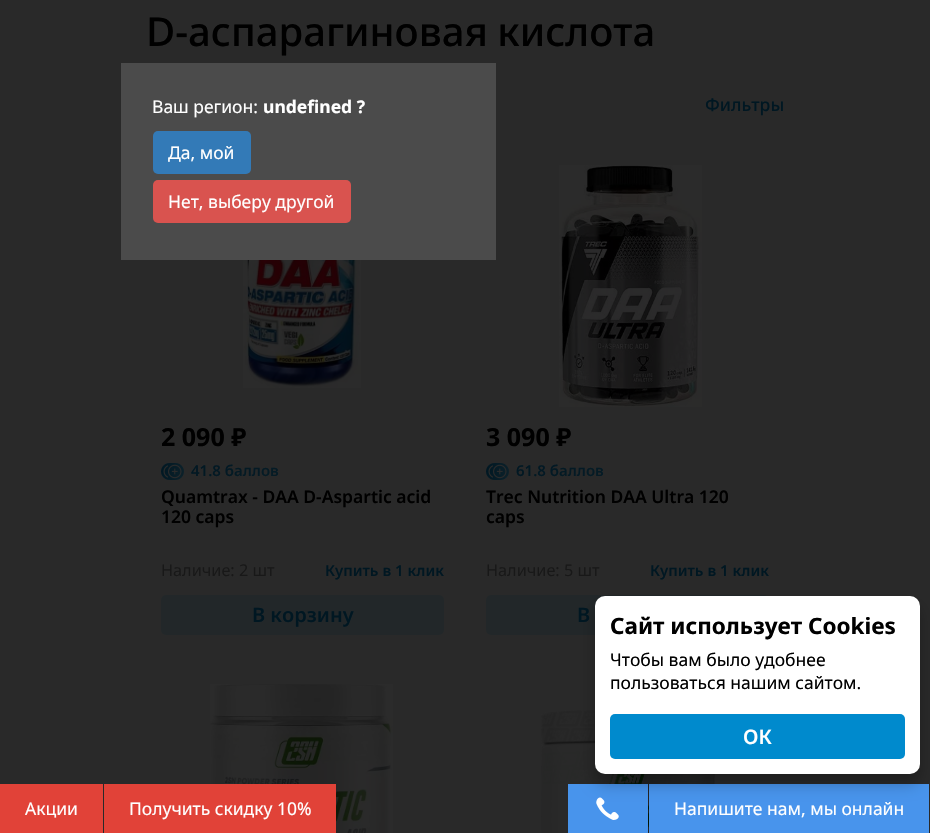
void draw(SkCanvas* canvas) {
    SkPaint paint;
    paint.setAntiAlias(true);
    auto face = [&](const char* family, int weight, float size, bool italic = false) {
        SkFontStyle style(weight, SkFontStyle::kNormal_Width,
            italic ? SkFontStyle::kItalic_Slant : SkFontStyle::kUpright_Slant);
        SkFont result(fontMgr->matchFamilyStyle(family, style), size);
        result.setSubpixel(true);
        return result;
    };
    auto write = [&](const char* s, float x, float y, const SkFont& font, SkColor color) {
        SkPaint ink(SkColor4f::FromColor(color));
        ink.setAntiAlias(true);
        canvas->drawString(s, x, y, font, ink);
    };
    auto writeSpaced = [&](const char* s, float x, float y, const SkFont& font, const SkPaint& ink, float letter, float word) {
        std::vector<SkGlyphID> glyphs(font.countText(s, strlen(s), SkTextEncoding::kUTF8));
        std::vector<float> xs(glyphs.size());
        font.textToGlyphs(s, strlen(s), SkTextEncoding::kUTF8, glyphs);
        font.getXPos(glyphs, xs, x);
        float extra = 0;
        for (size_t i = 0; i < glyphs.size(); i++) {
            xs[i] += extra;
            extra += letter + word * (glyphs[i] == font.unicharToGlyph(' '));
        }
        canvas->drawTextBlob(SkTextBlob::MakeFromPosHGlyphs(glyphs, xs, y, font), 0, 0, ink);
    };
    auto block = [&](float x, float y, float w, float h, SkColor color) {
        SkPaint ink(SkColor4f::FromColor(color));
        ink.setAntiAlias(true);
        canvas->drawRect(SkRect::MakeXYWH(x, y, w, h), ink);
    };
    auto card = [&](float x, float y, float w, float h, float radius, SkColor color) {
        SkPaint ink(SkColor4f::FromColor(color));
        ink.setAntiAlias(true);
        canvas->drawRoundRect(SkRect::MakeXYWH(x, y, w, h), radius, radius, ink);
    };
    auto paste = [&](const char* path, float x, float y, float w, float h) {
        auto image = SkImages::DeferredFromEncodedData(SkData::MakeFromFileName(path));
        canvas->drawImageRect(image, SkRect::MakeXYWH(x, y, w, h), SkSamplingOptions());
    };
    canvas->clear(SkColorSetRGB(41, 41, 41));
    auto kFont1 = face("Noto Sans", 500, 40);
    paint.setColor(SK_ColorBLACK);
    writeSpaced("D-аспарагиновая кислота", 146, 46, kFont1, paint, 0, -1);
    auto kFont2 = face("Noto Sans", 500, 17.5f);
    write("Фильтры", 705, 111, kFont2, SkColorSetRGB(0, 23, 34));
    paste("pic1.png", 243, 260, 118, 128);
    auto kFont3 = face("Noto Sans", 700, 25);
    write("2 090 ₽", 161, 446, kFont3, SK_ColorBLACK);
    paste("pic2.png", 161, 463, 23, 17);
    auto kFont4 = face("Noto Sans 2", 600, 15);
    {
        const SkColor colors[] = {SkColorSetRGB(0, 23, 34), SkColorSetRGB(13, 33, 42)};
        const float stops[] = {0, 1};
        const SkPoint ends[] = {{163, 452}, {442, 492}};
        paint.setShader(SkGradientShader::MakeLinear(ends, colors, stops, 2, SkTileMode::kClamp));
        paint.setAlpha(255);
    }
    canvas->drawString("41.8 баллов", 191, 476, kFont4, paint);
    auto kFont5 = face("Noto Sans", 600, 17.5f);
    write("Quamtrax - DAA D-Aspartic acid", 161, 503, kFont5, SK_ColorBLACK);
    write("120 caps", 161, 523, kFont5, SK_ColorBLACK);
    auto kFont6 = face("Noto Sans", 400, 16.25f);
    write("Наличие: 2 шт", 161, 576, kFont6, SkColorSetRGB(24, 24, 24));
    auto kFont7 = face("Noto Sans", 600, 15);
    write("Купить в 1 клик", 325, 576, kFont7, SkColorSetRGB(0, 23, 34));
    card(161, 595, 283, 40, 5, SkColorSetRGB(34, 39, 41));
    auto kFont8 = face("Noto Sans", 600, 20);
    write("В корзину", 252, 622, kFont8, SkColorSetRGB(0, 23, 34));
    paste("pic3.png", 559, 165, 143, 242);
    write("3 090 ₽", 486, 446, kFont3, SK_ColorBLACK);
    paste("pic2.png", 486, 463, 23, 17);
    {
        const SkColor colors[] = {SkColorSetRGB(0, 23, 34), SkColorSetRGB(13, 33, 42)};
        const float stops[] = {0, 1};
        const SkPoint ends[] = {{488, 452}, {767, 492}};
        paint.setShader(SkGradientShader::MakeLinear(ends, colors, stops, 2, SkTileMode::kClamp));
        paint.setAlpha(255);
    }
    canvas->drawString("61.8 баллов", 516, 476, kFont4, paint);
    write("Trec Nutrition DAA Ultra 120", 486, 503, kFont5, SK_ColorBLACK);
    write("caps", 486, 523, kFont5, SK_ColorBLACK);
    write("Наличие: 5 шт", 486, 576, kFont6, SkColorSetRGB(24, 24, 24));
    write("Купить в 1 клик", 650, 576, kFont7, SkColorSetRGB(0, 23, 34));
    card(486, 595, 283, 40, 5, SkColorSetRGB(34, 39, 41));
    write("В", 577, 622, kFont8, SkColorSetRGB(0, 23, 34));
    paste("pic4.png", 210, 684, 183, 149);
    paste("pic5.png", 541, 709, 175, 124);
    block(121, 63, 375, 197, SkColorSetRGB(75, 75, 75));
    auto kFont9 = face("Noto Sans", 400, 17.5f);
    write("Ваш регион:", 152, 113, kFont9, SK_ColorWHITE);
    auto kFont10 = face("Noto Sans", 700, 17.5f);
    write("undefined ?", 263, 113, kFont10, SK_ColorWHITE);
    card(153, 131, 98, 43, 5, SkColorSetRGB(51, 122, 183));
    write("Да, мой", 168, 159, kFont9, SK_ColorWHITE);
    card(153, 180, 198, 43, 5, SkColorSetRGB(217, 83, 79));
    write("Нет, выберу другой", 168, 208, kFont9, SK_ColorWHITE);
    block(0, 784, 103, 49, SkColorSetRGB(225, 66, 56));
    write("Акции", 25, 815, kFont9, SK_ColorWHITE);
    block(104, 784, 232, 49, SkColorSetRGB(225, 66, 56));
    write("Получить скидку 10%", 129, 815, kFont9, SK_ColorWHITE);
    block(568, 784, 80, 49, SkColorSetRGB(72, 148, 236));
    paste("pic6.png", 596, 797, 23, 23);
    block(649, 784, 280, 49, SkColorSetRGB(72, 148, 236));
    write("Напишите нам, мы онлайн", 674, 815, kFont9, SK_ColorWHITE);
    paint.setShader(nullptr);
    paint.setColor(SkColorSetARGB(64, 0, 0, 0));
    paint.setMaskFilter(SkMaskFilter::MakeBlur(kNormal_SkBlurStyle, 7.5f));
    canvas->drawRoundRect(SkRect::MakeXYWH(595, 606, 325, 178), 10, 10, paint);
    paint.setMaskFilter(nullptr);
    card(595, 596, 325, 178, 10, SK_ColorWHITE);
    auto kFont11 = face("Noto Sans", 700, 22.5f);
    write("Сайт использует Cookies", 610, 634, kFont11, SK_ColorBLACK);
    write("Чтобы вам было удобнее", 610, 666, kFont9, SK_ColorBLACK);
    write("пользоваться нашим сайтом.", 610, 689, kFont9, SK_ColorBLACK);
    card(610, 714, 295, 45, 5, SkColorSetRGB(0, 138, 205));
    auto kFont12 = face("Noto Sans 2", 600, 20);
    write("ОК", 743, 744, kFont12, SK_ColorWHITE);
}
